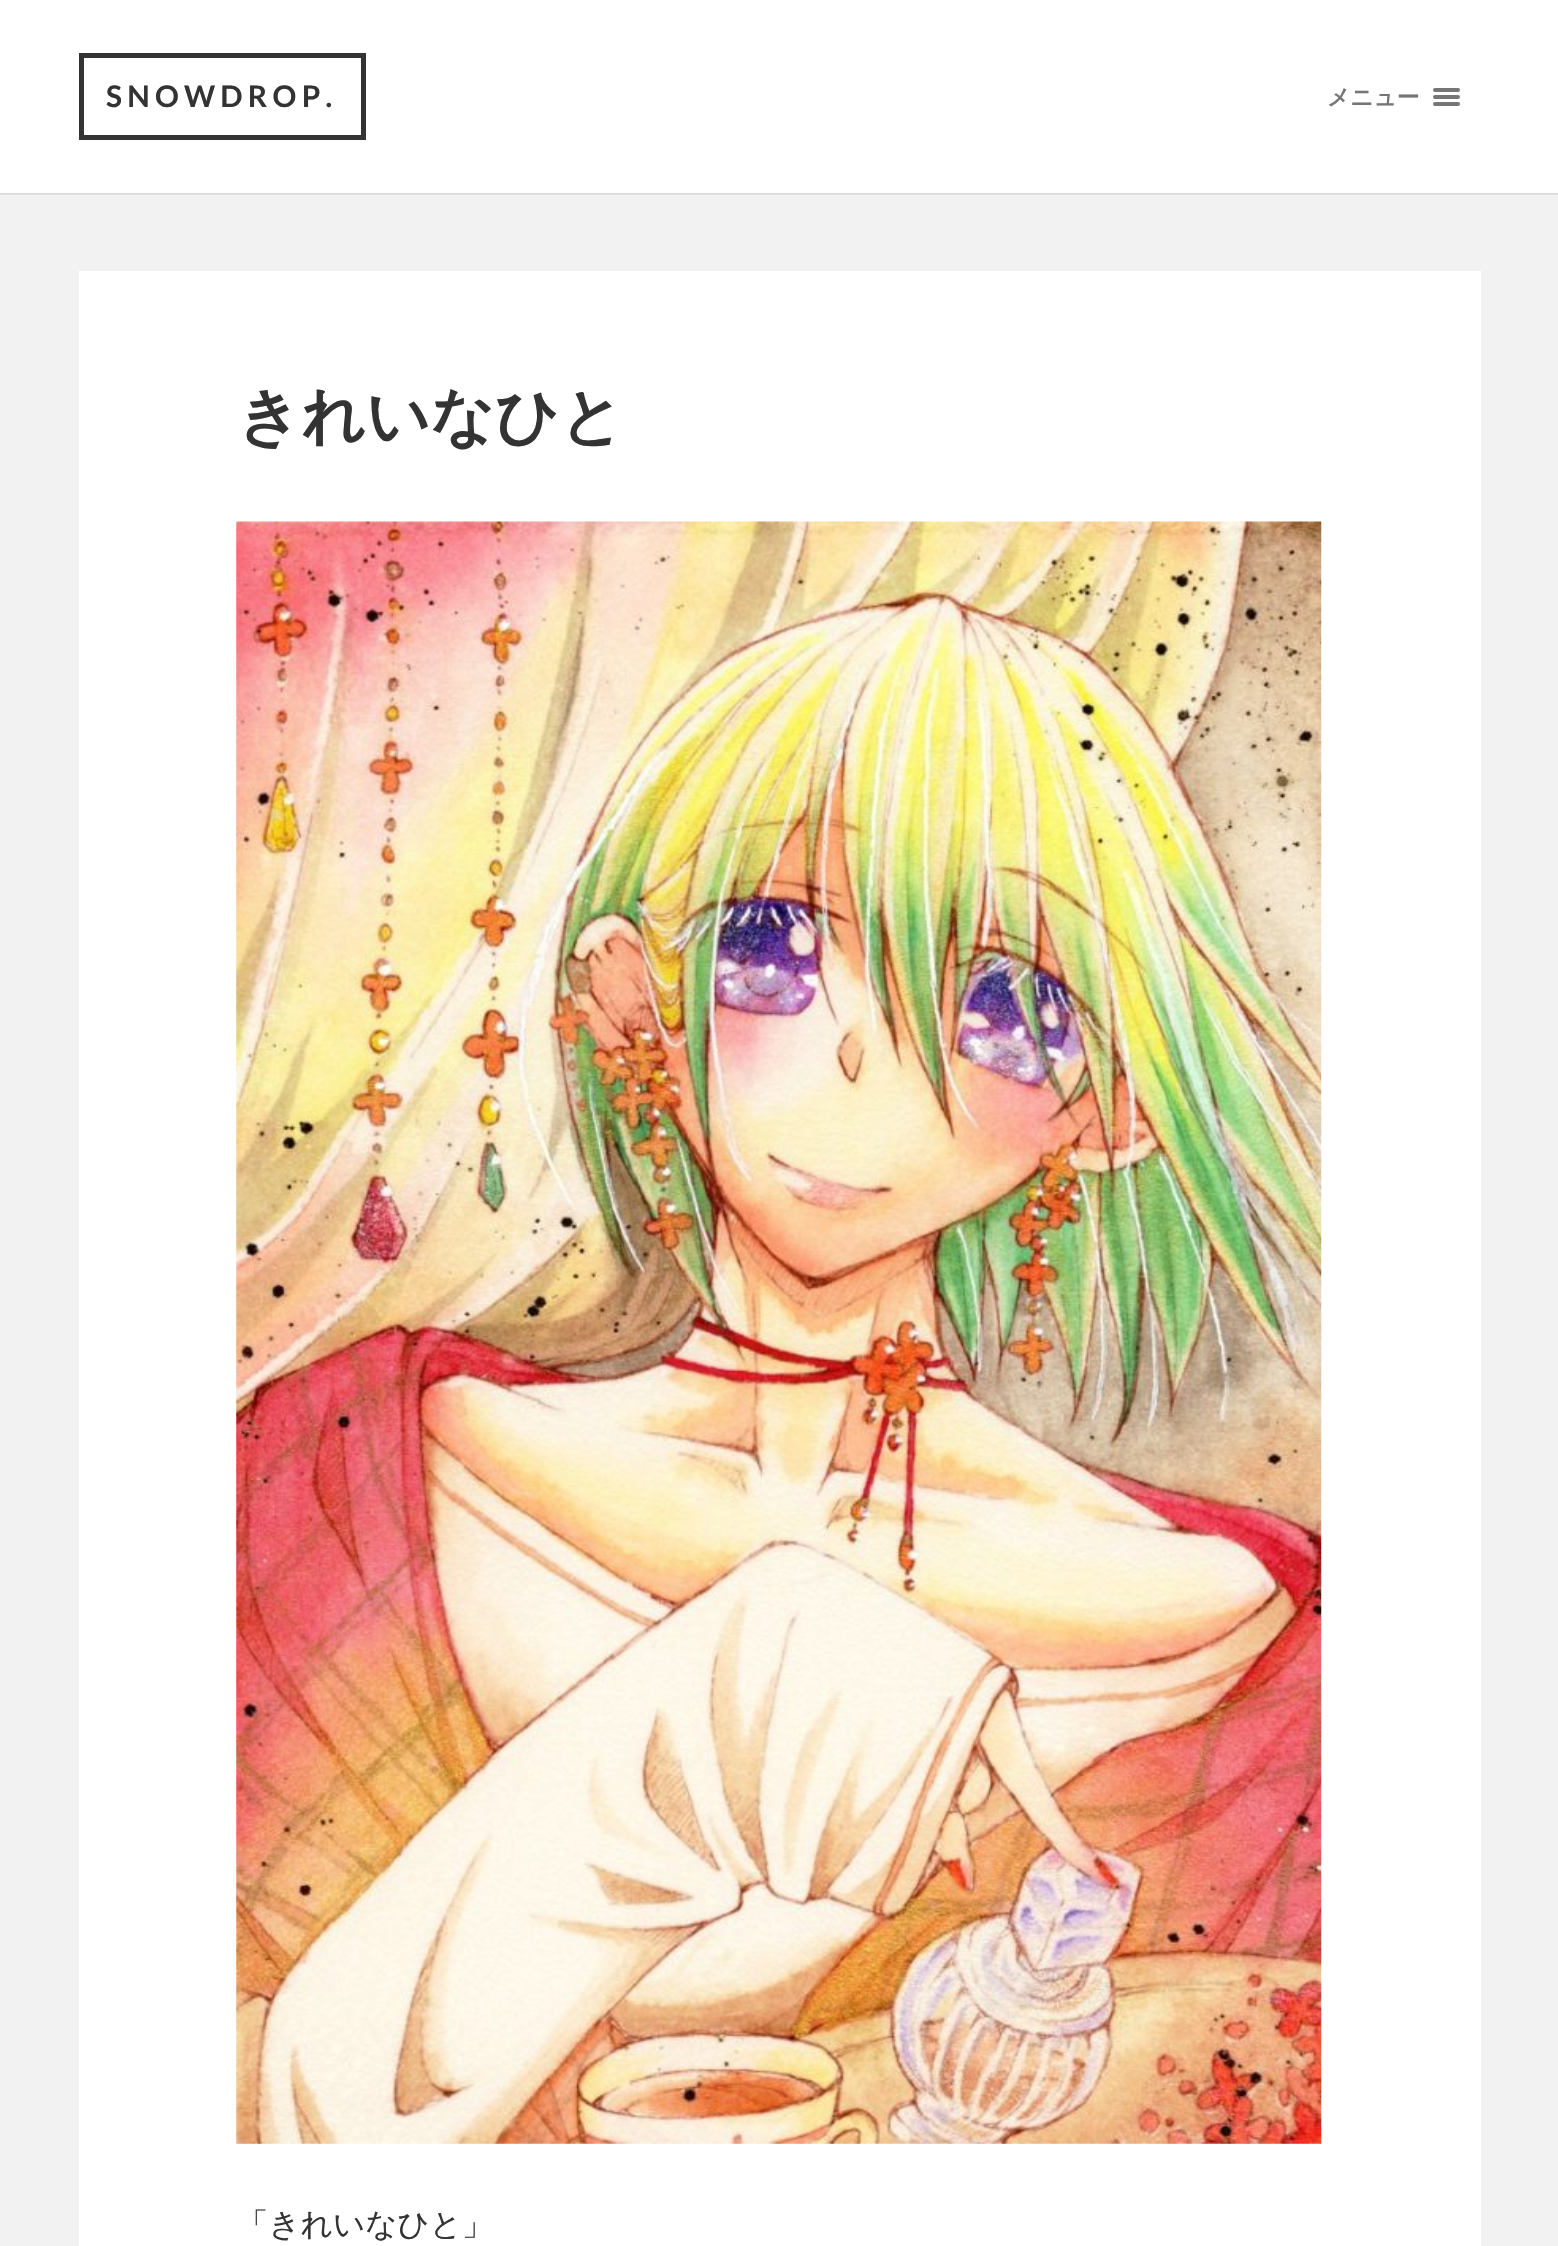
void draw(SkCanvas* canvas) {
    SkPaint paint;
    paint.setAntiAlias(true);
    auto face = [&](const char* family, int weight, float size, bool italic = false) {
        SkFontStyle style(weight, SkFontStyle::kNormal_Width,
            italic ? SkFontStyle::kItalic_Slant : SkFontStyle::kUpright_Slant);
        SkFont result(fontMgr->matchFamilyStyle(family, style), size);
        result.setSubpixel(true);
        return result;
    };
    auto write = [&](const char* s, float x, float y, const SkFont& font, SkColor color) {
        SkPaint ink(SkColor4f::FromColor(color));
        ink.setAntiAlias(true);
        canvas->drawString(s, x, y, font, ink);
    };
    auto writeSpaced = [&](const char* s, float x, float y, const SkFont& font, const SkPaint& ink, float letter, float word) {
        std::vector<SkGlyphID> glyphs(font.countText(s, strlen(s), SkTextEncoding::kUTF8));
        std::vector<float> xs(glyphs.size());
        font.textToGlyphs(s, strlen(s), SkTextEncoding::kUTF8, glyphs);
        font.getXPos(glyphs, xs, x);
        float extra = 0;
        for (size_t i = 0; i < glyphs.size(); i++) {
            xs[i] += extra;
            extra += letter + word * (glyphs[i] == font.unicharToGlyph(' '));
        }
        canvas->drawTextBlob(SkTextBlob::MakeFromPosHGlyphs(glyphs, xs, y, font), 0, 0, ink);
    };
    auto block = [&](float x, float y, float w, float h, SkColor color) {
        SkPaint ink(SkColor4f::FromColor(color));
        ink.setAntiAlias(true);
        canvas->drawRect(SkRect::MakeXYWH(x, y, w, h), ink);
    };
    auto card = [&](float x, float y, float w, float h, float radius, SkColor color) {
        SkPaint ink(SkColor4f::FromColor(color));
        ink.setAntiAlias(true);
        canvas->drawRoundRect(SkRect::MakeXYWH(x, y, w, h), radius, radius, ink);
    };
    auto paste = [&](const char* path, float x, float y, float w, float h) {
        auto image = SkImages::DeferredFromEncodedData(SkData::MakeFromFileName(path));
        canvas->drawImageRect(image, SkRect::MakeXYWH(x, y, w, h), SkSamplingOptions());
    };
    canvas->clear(SkColorSetRGB(242, 242, 242));
    block(0, 0, 1558, 193, SK_ColorWHITE);
    block(0, 193, 1558, 2, SkColorSetRGB(221, 221, 221));
    paint.setStyle(SkPaint::kStroke_Style);
    paint.setStrokeWidth(5);
    paint.setColor(SkColorSetRGB(51, 51, 51));
    canvas->drawRect(SkRect::MakeXYWH(81.5f, 55.5f, 282, 82), paint);
    auto kFont1 = face("Lato", 700, 29.75f);
    paint.setStyle(SkPaint::kFill_Style);
    writeSpaced("SNOWDROP.", 106, 107, kFont1, paint, 5.25f, 0);
    auto kFont2 = face("WenQuanYi Zen Hei", 700, 22.75f);
    write("メニュー", 1327, 105, kFont2, SkColorSetRGB(118, 118, 118));
    card(1433, 88, 27, 4, 2, SkColorSetRGB(118, 118, 118));
    card(1433, 95, 27, 4, 2, SkColorSetRGB(118, 118, 118));
    card(1433, 102, 27, 4, 2, SkColorSetRGB(118, 118, 118));
    block(79, 271, 1402, 1975, SK_ColorWHITE);
    auto kFont3 = face("WenQuanYi Zen Hei", 700, 63);
    write("きれいなひと", 237, 438, kFont3, SkColorSetRGB(51, 51, 51));
    paste("pic1.png", 236, 521, 1086, 1623);
    auto kFont4 = face("WenQuanYi Zen Hei", 500, 31.5f);
    write("「きれいなひと」", 237, 2235, kFont4, SkColorSetRGB(51, 51, 51));
}
